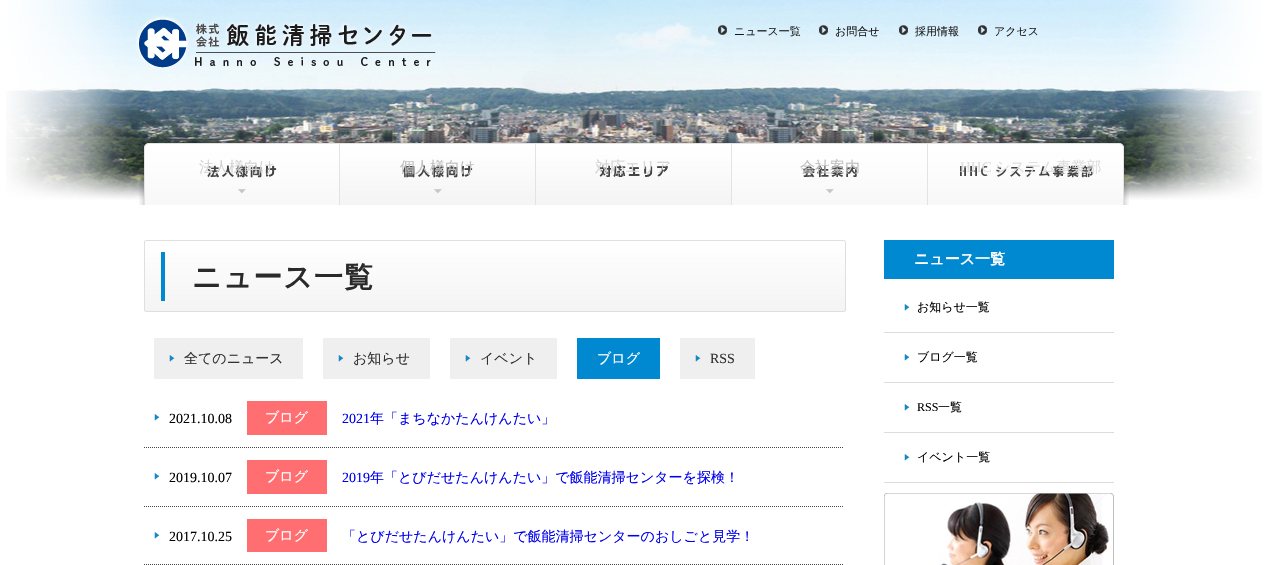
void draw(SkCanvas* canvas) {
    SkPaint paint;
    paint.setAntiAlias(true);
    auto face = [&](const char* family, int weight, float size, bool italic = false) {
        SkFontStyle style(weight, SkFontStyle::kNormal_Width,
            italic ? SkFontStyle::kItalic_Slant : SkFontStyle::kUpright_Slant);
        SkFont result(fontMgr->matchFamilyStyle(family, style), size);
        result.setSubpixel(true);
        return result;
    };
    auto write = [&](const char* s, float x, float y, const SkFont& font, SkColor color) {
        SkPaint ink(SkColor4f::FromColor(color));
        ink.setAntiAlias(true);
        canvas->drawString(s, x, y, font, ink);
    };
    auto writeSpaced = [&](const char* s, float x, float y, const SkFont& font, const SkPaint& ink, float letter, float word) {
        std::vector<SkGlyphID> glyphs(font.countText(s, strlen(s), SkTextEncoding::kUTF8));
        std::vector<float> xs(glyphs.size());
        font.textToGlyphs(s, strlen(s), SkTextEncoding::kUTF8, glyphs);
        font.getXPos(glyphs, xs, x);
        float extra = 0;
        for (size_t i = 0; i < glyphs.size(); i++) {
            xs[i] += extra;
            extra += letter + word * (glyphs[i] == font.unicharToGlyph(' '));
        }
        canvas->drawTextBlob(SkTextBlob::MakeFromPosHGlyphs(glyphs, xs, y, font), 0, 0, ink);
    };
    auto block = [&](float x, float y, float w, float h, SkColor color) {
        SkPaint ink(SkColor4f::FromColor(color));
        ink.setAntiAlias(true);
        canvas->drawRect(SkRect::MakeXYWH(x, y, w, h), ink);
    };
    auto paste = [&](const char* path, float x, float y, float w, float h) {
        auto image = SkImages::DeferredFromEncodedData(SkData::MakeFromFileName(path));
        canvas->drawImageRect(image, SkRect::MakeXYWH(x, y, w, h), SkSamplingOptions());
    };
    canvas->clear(SK_ColorWHITE);
    paste("pic1.png", 6, 0, 1256, 200);
    paste("pic2.png", 136, 15, 300, 53);
    paste("pic3.png", 718, 25, 9, 10);
    auto kFont1 = face("WenQuanYi Zen Hei", 500, 11);
    write("ニュース一覧", 734, 35, kFont1, SkColorSetRGB(25, 25, 25));
    paste("pic4.png", 819, 25, 9, 10);
    write("お問合せ", 835, 35, kFont1, SkColorSetRGB(25, 25, 25));
    paste("pic5.png", 899, 25, 9, 10);
    write("採用情報", 915, 35, kFont1, SkColorSetRGB(25, 25, 25));
    paste("pic6.png", 978, 25, 9, 10);
    write("アクセス", 994, 35, kFont1, SkColorSetRGB(25, 25, 25));
    paste("pic7.png", 139, 138, 201, 67);
    auto kFont2 = face("WenQuanYi Zen Hei", 500, 15);
    write("法人様向け", 199, 172, kFont2, SkColorSetRGB(212, 212, 212));
    paste("pic8.png", 340, 138, 196, 67);
    write("個人様向け", 400, 172, kFont2, SkColorSetRGB(192, 192, 192));
    paste("pic9.png", 536, 138, 196, 67);
    write("対応エリア", 595, 172, kFont2, SkColorSetRGB(212, 212, 212));
    paste("pic10.png", 732, 138, 196, 67);
    write("会社案内", 800, 172, kFont2, SkColorSetRGB(192, 192, 192));
    paste("pic11.png", 928, 138, 201, 67);
    auto kFont3 = face("Liberation Serif", 400, 15);
    write("HHC", 960, 172, kFont3, SkColorSetRGB(221, 221, 221));
    write("システム事業部", 995, 172, kFont2, SkColorSetRGB(221, 221, 221));
    canvas->save();
    canvas->clipPath(SkPathBuilder().moveTo(146, 240).lineTo(844, 240).cubicTo(845, 240, 846, 241, 846, 242).lineTo(846, 310).cubicTo(846, 311, 845, 312, 844, 312).lineTo(146, 312).cubicTo(145, 312, 144, 311, 144, 310).lineTo(144, 242).cubicTo(144, 241, 145, 240, 146, 240).close().detach(), true);
    {
        const SkColor colors[] = {SK_ColorWHITE, SkColorSetRGB(244, 244, 244)};
        const float stops[] = {0, 1};
        const SkPoint ends[] = {{495, 241}, {495, 311}};
        paint.setShader(SkGradientShader::MakeLinear(ends, colors, stops, 2, SkTileMode::kClamp));
        paint.setAlpha(255);
    }
    canvas->drawRect(SkRect::MakeXYWH(144, 241, 702, 70), paint);
    canvas->restore();
    paint.setStyle(SkPaint::kStroke_Style);
    paint.setStrokeWidth(1);
    paint.setShader(nullptr);
    paint.setColor(SkColorSetRGB(223, 223, 223));
    canvas->drawRoundRect(SkRect::MakeXYWH(144.5f, 240.5f, 701, 71), 1.5f, 1.5f, paint);
    block(161, 252, 4, 49, SkColorSetRGB(0, 137, 209));
    auto kFont4 = face("WenQuanYi Zen Hei", 700, 29);
    paint.setStyle(SkPaint::kFill_Style);
    paint.setColor(SkColorSetRGB(42, 42, 42));
    writeSpaced("ニュース一覧", 192, 287, kFont4, paint, 1, 0);
    block(154, 338, 149, 41, SkColorSetRGB(239, 239, 239));
    paste("pic12.png", 169, 355, 6, 7);
    auto kFont5 = face("WenQuanYi Zen Hei", 500, 14);
    write("全てのニュース", 184, 363, kFont5, SkColorSetRGB(51, 51, 51));
    block(323, 338, 107, 41, SkColorSetRGB(239, 239, 239));
    paste("pic12.png", 338, 355, 6, 7);
    write("お知らせ", 353, 363, kFont5, SkColorSetRGB(51, 51, 51));
    block(450, 338, 107, 41, SkColorSetRGB(239, 239, 239));
    paste("pic12.png", 465, 355, 6, 7);
    write("イベント", 480, 363, kFont5, SkColorSetRGB(51, 51, 51));
    block(577, 338, 83, 41, SkColorSetRGB(0, 137, 209));
    paste("pic13.png", 592, 355, 5, 6);
    write("ブログ", 597, 363, kFont5, SK_ColorWHITE);
    block(680, 338, 75, 41, SkColorSetRGB(239, 239, 239));
    paste("pic12.png", 695, 355, 6, 7);
    auto kFont6 = face("Liberation Serif", 400, 14);
    write("RSS", 710, 363, kFont6, SkColorSetRGB(51, 51, 51));
    paste("pic14.png", 154, 414, 6, 7);
    paint.setStyle(SkPaint::kStroke_Style);
    paint.setColor(SkColorSetRGB(68, 68, 68));
    paint.setPathEffect(SkDashPathEffect::Make({{1, 1}}, 0));
    canvas->drawPath(SkPathBuilder().moveTo(144, 447.5f).lineTo(844, 447.5f).detach(), paint);
    paint.setPathEffect(nullptr);
    write("2021.10.08", 169, 423, kFont6, SK_ColorBLACK);
    block(247, 401, 80, 34, SkColorSetRGB(255, 111, 114));
    write("ブログ", 265, 422, kFont5, SK_ColorWHITE);
    write("2021", 342, 423, kFont6, SkColorSetRGB(0, 0, 238));
    write("年「まちなかたんけんたい」", 370, 423, kFont5, SkColorSetRGB(0, 0, 238));
    paste("pic14.png", 154, 473, 6, 7);
    paint.setPathEffect(SkDashPathEffect::Make({{1, 1}}, 0));
    canvas->drawPath(SkPathBuilder().moveTo(144, 506.5f).lineTo(844, 506.5f).detach(), paint);
    paint.setPathEffect(nullptr);
    write("2019.10.07", 169, 482, kFont6, SK_ColorBLACK);
    block(247, 460, 80, 34, SkColorSetRGB(255, 111, 114));
    write("ブログ", 265, 481, kFont5, SK_ColorWHITE);
    write("2019", 342, 482, kFont6, SkColorSetRGB(0, 0, 238));
    write("年「とびだせたんけんたい」で飯能清掃センターを探検！", 370, 482, kFont5, SkColorSetRGB(0, 0, 238));
    paste("pic14.png", 154, 532, 6, 7);
    paint.setPathEffect(SkDashPathEffect::Make({{1, 1}}, 0));
    canvas->drawPath(SkPathBuilder().moveTo(144, 564.5f).lineTo(844, 564.5f).detach(), paint);
    paint.setPathEffect(nullptr);
    write("2017.10.25", 169, 541, kFont6, SK_ColorBLACK);
    block(247, 519, 80, 33, SkColorSetRGB(255, 111, 114));
    write("ブログ", 265, 540, kFont5, SK_ColorWHITE);
    write("「とびだせたんけんたい」で飯能清掃センターのおしごと見学！", 342, 541, kFont5, SkColorSetRGB(0, 0, 238));
    block(884, 240, 230, 39, SkColorSetRGB(0, 137, 209));
    auto kFont7 = face("WenQuanYi Zen Hei", 700, 15);
    write("ニュース一覧", 914, 264, kFont7, SK_ColorWHITE);
    block(884, 332, 230, 1, SkColorSetRGB(221, 221, 221));
    paste("pic14.png", 904, 304, 6, 7);
    auto kFont8 = face("WenQuanYi Zen Hei", 500, 12);
    write("お知らせ一覧", 917, 311, kFont8, SK_ColorBLACK);
    block(884, 382, 230, 1, SkColorSetRGB(221, 221, 221));
    paste("pic14.png", 904, 354, 6, 7);
    write("ブログ一覧", 917, 361, kFont8, SK_ColorBLACK);
    block(884, 432, 230, 1, SkColorSetRGB(221, 221, 221));
    paste("pic14.png", 904, 404, 6, 7);
    auto kFont9 = face("Liberation Serif", 400, 12);
    write("RSS", 917, 411, kFont9, SK_ColorBLACK);
    write("一覧", 938, 411, kFont8, SK_ColorBLACK);
    block(884, 482, 230, 1, SkColorSetRGB(221, 221, 221));
    paste("pic14.png", 904, 454, 6, 7);
    write("イベント一覧", 917, 461, kFont8, SK_ColorBLACK);
    paste("pic15.png", 884, 493, 230, 72);
}
